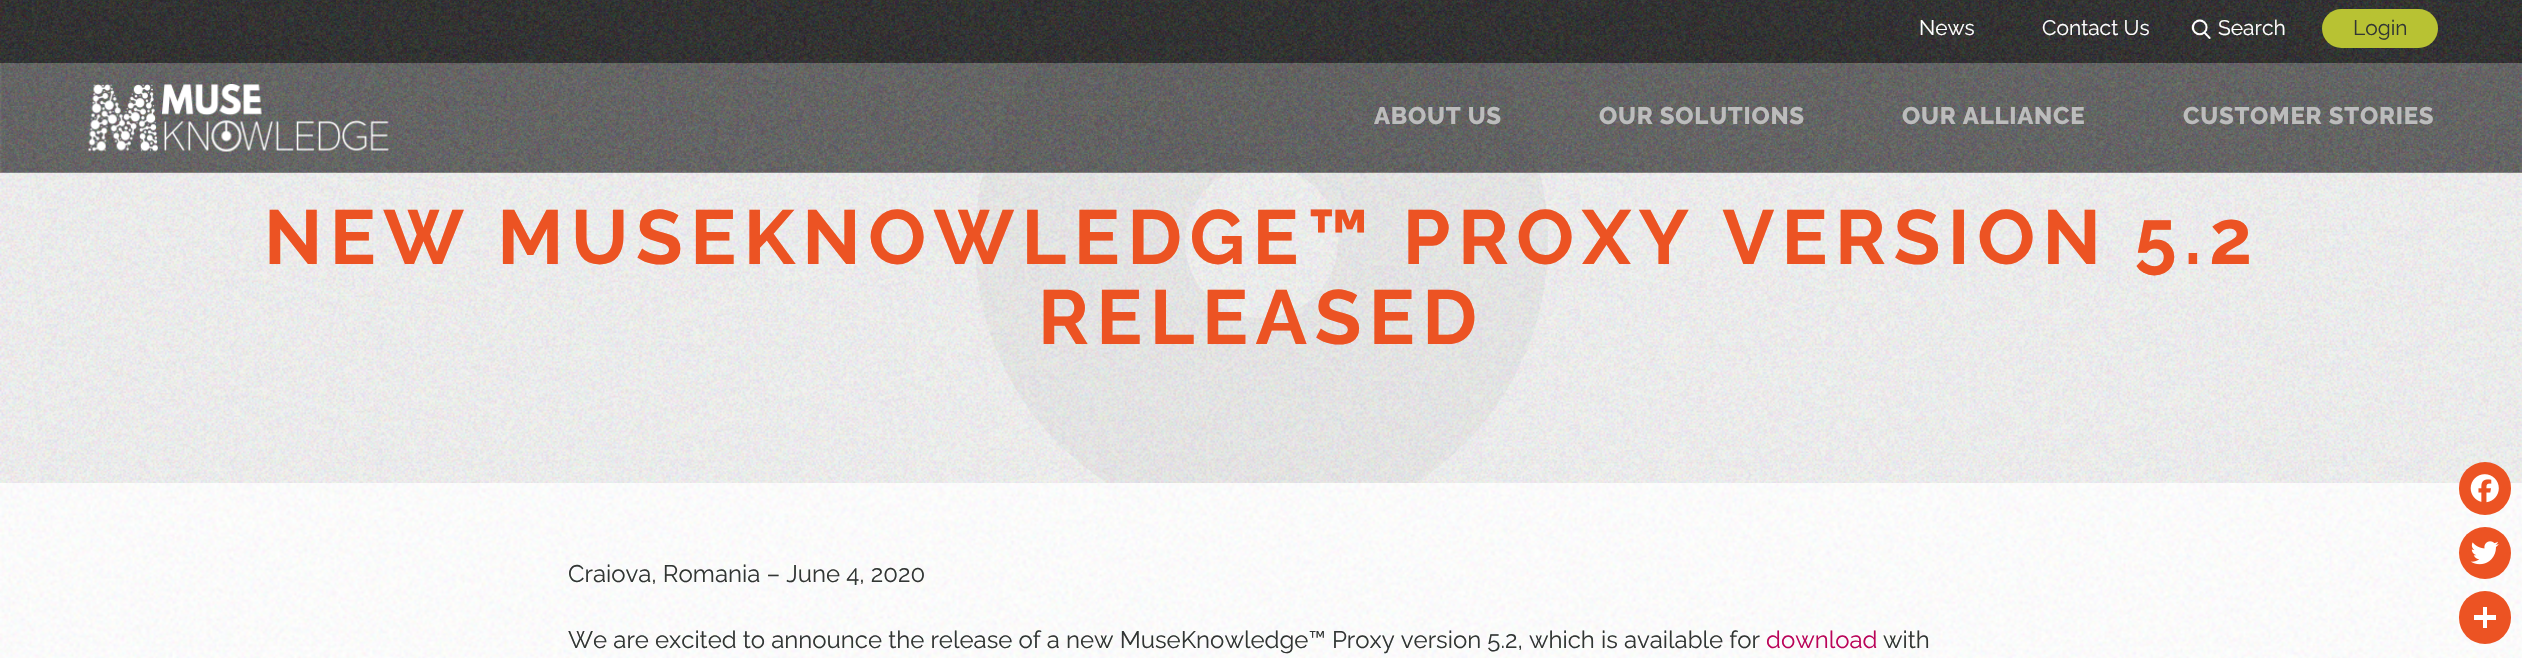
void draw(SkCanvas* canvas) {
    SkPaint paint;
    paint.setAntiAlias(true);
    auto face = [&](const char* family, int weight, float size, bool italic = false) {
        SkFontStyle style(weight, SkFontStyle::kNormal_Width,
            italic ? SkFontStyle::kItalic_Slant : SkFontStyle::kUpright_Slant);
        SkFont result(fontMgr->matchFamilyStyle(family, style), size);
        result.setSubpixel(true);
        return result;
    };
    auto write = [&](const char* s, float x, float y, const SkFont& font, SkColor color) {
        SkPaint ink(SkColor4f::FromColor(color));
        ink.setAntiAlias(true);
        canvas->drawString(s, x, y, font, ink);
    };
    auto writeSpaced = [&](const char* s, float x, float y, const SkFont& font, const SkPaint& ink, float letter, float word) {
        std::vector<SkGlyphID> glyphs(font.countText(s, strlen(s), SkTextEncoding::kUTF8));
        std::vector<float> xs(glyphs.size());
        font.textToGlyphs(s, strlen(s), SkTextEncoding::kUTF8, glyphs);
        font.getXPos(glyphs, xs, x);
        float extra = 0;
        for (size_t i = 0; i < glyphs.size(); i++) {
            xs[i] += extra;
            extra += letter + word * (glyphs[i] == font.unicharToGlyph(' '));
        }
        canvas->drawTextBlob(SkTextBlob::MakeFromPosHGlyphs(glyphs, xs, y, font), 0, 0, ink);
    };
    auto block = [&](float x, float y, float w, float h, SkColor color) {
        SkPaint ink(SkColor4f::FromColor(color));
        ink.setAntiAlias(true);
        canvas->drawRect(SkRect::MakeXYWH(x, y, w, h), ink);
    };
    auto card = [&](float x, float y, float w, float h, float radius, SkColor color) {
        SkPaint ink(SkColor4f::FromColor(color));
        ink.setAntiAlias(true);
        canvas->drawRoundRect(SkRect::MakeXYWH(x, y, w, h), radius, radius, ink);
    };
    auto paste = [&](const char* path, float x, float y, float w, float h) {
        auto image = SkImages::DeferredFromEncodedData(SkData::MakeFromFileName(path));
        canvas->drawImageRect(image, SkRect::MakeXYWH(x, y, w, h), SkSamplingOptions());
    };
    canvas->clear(SK_ColorWHITE);
    paste("pic1.png", 0, 483, 2522, 175);
    block(0, 63, 2522, 420, SkColorSetRGB(228, 228, 228));
    canvas->save();
    canvas->clipRect(SkRect::MakeXYWH(0, 0, 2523, 483));
    paint.setStyle(SkPaint::kStroke_Style);
    paint.setStrokeWidth(210);
    paint.setColor(SkColorSetRGB(213, 212, 212));
    canvas->drawCircle(1261.5f, 241.5f, 181.5f, paint);
    canvas->restore();
    paste("pic5.png", 0, 63, 2522, 420);
    block(0, 63, 2522, 110, SkColorSetARGB(102, 51, 51, 51));
    block(0, 0, 2522, 63, SkColorSetRGB(51, 51, 51));
    paste("pic2.png", 0, 0, 2522, 173);
    auto kFont1 = face("Raleway", 400, 21);
    write("News", 1919, 35, kFont1, SK_ColorWHITE);
    write("Contact Us", 2042, 35, kFont1, SK_ColorWHITE);
    paste("pic3.png", 2191, 19, 20, 20);
    write("Search", 2218, 35, kFont1, SK_ColorWHITE);
    card(2322, 9, 116, 39, 19.5f, SkColorSetRGB(184, 194, 51));
    write("Login", 2353, 35, kFont1, SkColorSetRGB(50, 54, 52));
    paste("pic4.png", 88, 84, 301, 68);
    auto kFont2 = face("Raleway", 800, 24);
    paint.setStyle(SkPaint::kFill_Style);
    paint.setColor(SkColorSetRGB(188, 188, 188));
    writeSpaced("ABOUT US", 1374, 124, kFont2, paint, 0.75f, 0);
    writeSpaced("OUR SOLUTIONS", 1599, 124, kFont2, paint, 0.75f, 0);
    writeSpaced("OUR ALLIANCE", 1902, 124, kFont2, paint, 0.75f, 0);
    writeSpaced("CUSTOMER STORIES", 2183, 124, kFont2, paint, 0.75f, 0);
    auto kFont3 = face("Raleway", 700, 76.5f);
    paint.setColor(SkColorSetRGB(236, 83, 35));
    writeSpaced("NEW MUSEKNOWLEDGE™ PROXY VERSION 5.2", 264, 264, kFont3, paint, 7.5f, 0);
    writeSpaced("RELEASED", 1038, 344, kFont3, paint, 7.5f, 0);
    auto kFont4 = face("Raleway", 400, 24);
    write("Craiova, Romania – June 4, 2020", 568, 582, kFont4, SkColorSetRGB(50, 54, 52));
    write("We are excited to announce the release of a new MuseKnowledge™ Proxy version 5.2, which is available for", 568, 648, kFont4, SkColorSetRGB(50, 54, 52));
    write("download", 1766, 648, kFont4, SkColorSetRGB(186, 4, 89));
    write("with", 1883, 648, kFont4, SkColorSetRGB(50, 54, 52));
    card(2459, 462, 52, 53, 26, SkColorSetRGB(236, 83, 35));
    paste("pic6.png", 2470, 474, 29, 29);
    canvas->drawCircle(2485, 553, 26, paint);
    paste("pic7.png", 2470, 541, 29, 24);
    card(2459, 591, 52, 53, 26, SkColorSetRGB(236, 83, 35));
    block(2483, 607, 4, 21, SK_ColorWHITE);
    block(2474, 615, 22, 5, SK_ColorWHITE);
}
